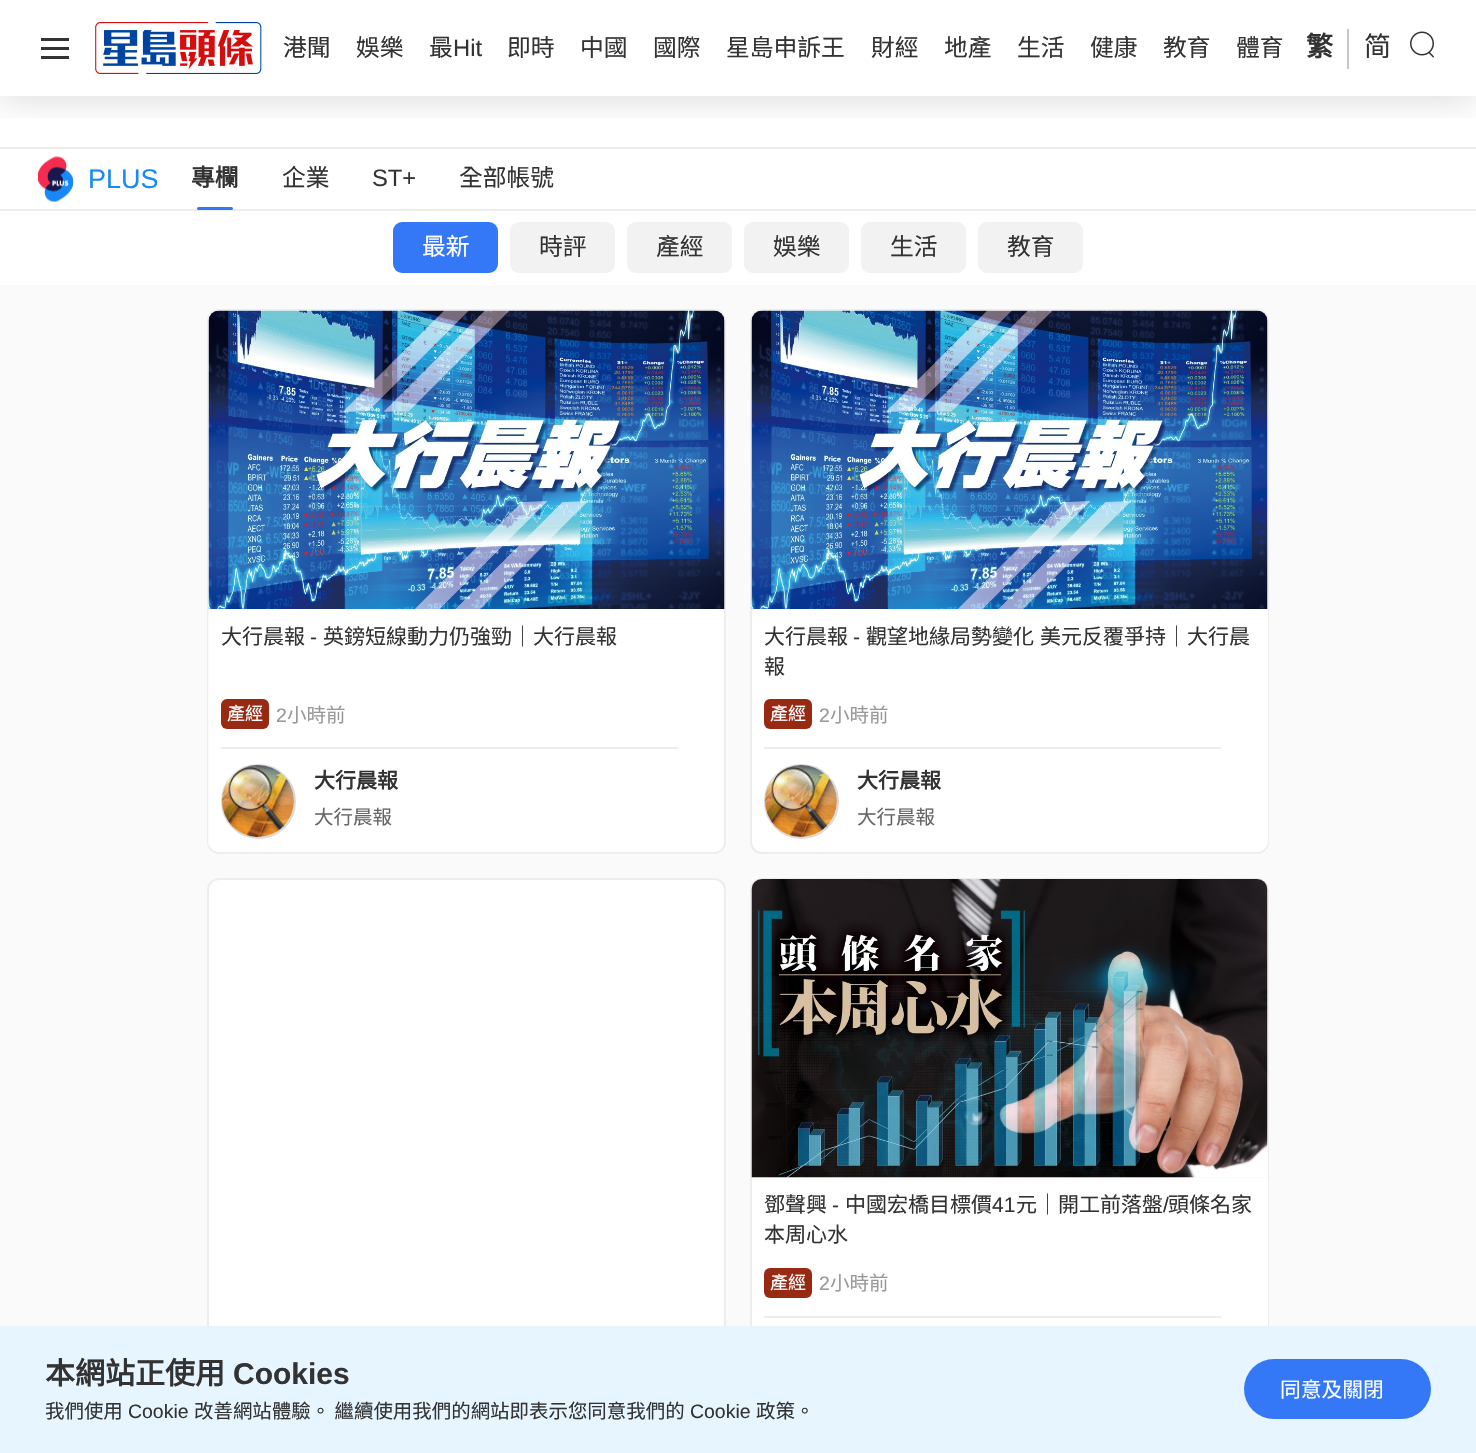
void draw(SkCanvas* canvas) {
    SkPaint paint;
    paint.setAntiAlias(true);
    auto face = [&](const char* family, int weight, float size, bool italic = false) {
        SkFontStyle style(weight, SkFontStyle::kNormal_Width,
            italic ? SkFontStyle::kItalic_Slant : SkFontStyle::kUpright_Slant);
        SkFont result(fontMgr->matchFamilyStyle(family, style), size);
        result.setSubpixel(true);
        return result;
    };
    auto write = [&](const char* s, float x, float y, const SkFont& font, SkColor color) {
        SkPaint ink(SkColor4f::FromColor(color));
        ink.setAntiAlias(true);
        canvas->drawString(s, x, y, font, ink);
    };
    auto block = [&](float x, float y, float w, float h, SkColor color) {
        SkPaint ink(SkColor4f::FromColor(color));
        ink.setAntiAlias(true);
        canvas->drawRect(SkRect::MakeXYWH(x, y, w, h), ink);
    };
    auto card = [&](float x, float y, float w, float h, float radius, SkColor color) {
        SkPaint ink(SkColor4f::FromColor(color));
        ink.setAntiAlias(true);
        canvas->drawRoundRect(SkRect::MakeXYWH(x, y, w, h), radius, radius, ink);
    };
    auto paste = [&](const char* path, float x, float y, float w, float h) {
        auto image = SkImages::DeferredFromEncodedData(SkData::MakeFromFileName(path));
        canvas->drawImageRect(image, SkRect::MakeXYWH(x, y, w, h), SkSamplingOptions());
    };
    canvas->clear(SK_ColorWHITE);
    block(0, 147, 1476, 2, SkColorSetRGB(237, 237, 237));
    canvas->save();
    canvas->clipRect(SkRect::MakeXYWH(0, 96, 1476, 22));
    paint.setColor(SkColorSetARGB(38, 0, 0, 0));
    paint.setMaskFilter(SkMaskFilter::MakeBlur(kNormal_SkBlurStyle, 18));
    canvas->drawRect(SkRect::MakeXYWH(0, 2, 1476, 96), paint);
    paint.setMaskFilter(nullptr);
    canvas->restore();
    block(41, 38, 28, 3, SkColorSetRGB(51, 51, 51));
    block(41, 47, 28, 3, SkColorSetRGB(51, 51, 51));
    block(41, 56, 28, 3, SkColorSetRGB(51, 51, 51));
    paste("pic1.png", 95, 22, 167, 52);
    auto kFont1 = face("Noto Sans CJK HK", 400, 23.75f);
    write("港聞", 283, 56, kFont1, SkColorSetRGB(51, 51, 51));
    write("娛樂", 356, 56, kFont1, SkColorSetRGB(51, 51, 51));
    write("最", 429, 56, kFont1, SkColorSetRGB(51, 51, 51));
    auto kFont2 = face("Liberation Sans", 400, 23.75f);
    write("Hit", 453, 56, kFont2, SkColorSetRGB(51, 51, 51));
    write("即時", 507, 56, kFont1, SkColorSetRGB(51, 51, 51));
    write("中國", 580, 56, kFont1, SkColorSetRGB(51, 51, 51));
    write("國際", 653, 56, kFont1, SkColorSetRGB(51, 51, 51));
    write("星島申訴王", 726, 56, kFont1, SkColorSetRGB(51, 51, 51));
    write("財經", 871, 56, kFont1, SkColorSetRGB(51, 51, 51));
    write("地產", 944, 56, kFont1, SkColorSetRGB(51, 51, 51));
    write("生活", 1017, 56, kFont1, SkColorSetRGB(51, 51, 51));
    write("健康", 1090, 56, kFont1, SkColorSetRGB(51, 51, 51));
    write("教育", 1163, 56, kFont1, SkColorSetRGB(51, 51, 51));
    write("體育", 1236, 56, kFont1, SkColorSetRGB(51, 51, 51));
    block(1347, 29, 2, 40, SkColorSetRGB(199, 199, 199));
    auto kFont3 = face("Noto Sans CJK HK", 700, 27);
    write("繁", 1306, 56, kFont3, SkColorSetRGB(51, 51, 51));
    auto kFont4 = face("Noto Sans CJK HK", 400, 27);
    write("简", 1364, 56, kFont4, SkColorSetRGB(51, 51, 51));
    paste("pic2.png", 1410, 31, 24, 27);
    block(0, 209, 1476, 2, SkColorSetRGB(237, 237, 237));
    paste("pic3.png", 38, 156, 36, 46);
    auto kFont5 = face("Liberation Sans", 400, 27);
    write("PLUS", 88, 188, kFont5, SkColorSetRGB(24, 137, 250));
    auto kFont6 = face("Noto Sans CJK HK", 700, 23.75f);
    write("專欄", 191, 186, kFont6, SkColorSetRGB(51, 51, 51));
    card(197, 207, 36, 3, 1.5f, SkColorSetRGB(52, 120, 247));
    write("企業", 282, 186, kFont1, SkColorSetRGB(51, 51, 51));
    write("ST+", 372, 186, kFont2, SkColorSetRGB(51, 51, 51));
    write("全部帳號", 459, 186, kFont1, SkColorSetRGB(51, 51, 51));
    card(393, 222, 105, 51, 9, SkColorSetRGB(52, 120, 247));
    write("最新", 422, 255, kFont1, SK_ColorWHITE);
    card(510, 222, 105, 51, 9, SkColorSetRGB(242, 242, 242));
    write("時評", 539, 255, kFont1, SkColorSetRGB(51, 51, 51));
    card(627, 222, 105, 51, 9, SkColorSetRGB(242, 242, 242));
    write("產經", 656, 255, kFont1, SkColorSetRGB(51, 51, 51));
    card(744, 222, 105, 51, 9, SkColorSetRGB(242, 242, 242));
    write("娛樂", 773, 255, kFont1, SkColorSetRGB(51, 51, 51));
    card(861, 222, 105, 51, 9, SkColorSetRGB(242, 242, 242));
    write("生活", 890, 255, kFont1, SkColorSetRGB(51, 51, 51));
    card(978, 222, 105, 51, 9, SkColorSetRGB(242, 242, 242));
    write("教育", 1007, 255, kFont1, SkColorSetRGB(51, 51, 51));
    block(0, 285, 1476, 1041, SkColorSetRGB(250, 250, 250));
    paint.setColor(SkColorSetRGB(237, 237, 237));
    canvas->drawPath(SkPathBuilder(SkPathFillType::kEvenOdd).moveTo(219, 309).lineTo(714, 309).cubicTo(721, 309, 726, 314, 726, 321).lineTo(726, 609).lineTo(207, 609).lineTo(207, 321).cubicTo(207, 314, 212, 309, 219, 309).close().moveTo(219, 310).lineTo(714, 310).cubicTo(720, 310, 724, 315, 724, 321).lineTo(724, 609).lineTo(208, 609).lineTo(208, 321).cubicTo(208, 315, 213, 310, 219, 310).close().detach(), paint);
    paste("pic4.png", 208, 310, 517, 299);
    paint.setColor(SK_ColorWHITE);
    canvas->drawPath(SkPathBuilder().moveTo(209, 609).lineTo(725, 609).lineTo(725, 841).cubicTo(725, 847, 720, 852, 714, 852).lineTo(220, 852).cubicTo(214, 852, 209, 847, 209, 841).close().detach(), paint);
    paint.setColor(SkColorSetRGB(237, 237, 237));
    canvas->drawPath(SkPathBuilder(SkPathFillType::kEvenOdd).moveTo(207, 609).lineTo(726, 609).lineTo(726, 842).cubicTo(726, 848, 721, 854, 714, 854).lineTo(219, 854).cubicTo(212, 854, 207, 848, 207, 842).close().moveTo(208, 609).lineTo(724, 609).lineTo(724, 842).cubicTo(724, 847, 720, 852, 714, 852).lineTo(219, 852).cubicTo(213, 852, 208, 847, 208, 842).close().detach(), paint);
    auto kFont7 = face("Noto Sans CJK HK", 400, 21);
    write("大行晨報", 221, 644, kFont7, SkColorSetRGB(51, 51, 51));
    auto kFont8 = face("Liberation Sans", 400, 21);
    write("-", 310, 644, kFont8, SkColorSetRGB(51, 51, 51));
    write("英鎊短線動力仍強勁｜大行晨報", 323, 644, kFont7, SkColorSetRGB(51, 51, 51));
    card(221, 699, 48, 30, 6, SkColorSetRGB(152, 42, 20));
    auto kFont9 = face("Noto Sans CJK HK", 400, 18);
    write("產經", 227, 720, kFont9, SK_ColorWHITE);
    auto kFont10 = face("Liberation Sans", 400, 19.5f);
    write("2", 276, 722, kFont10, SkColorSetRGB(153, 153, 153));
    auto kFont11 = face("Noto Sans CJK HK", 400, 19.5f);
    write("小時前", 287, 722, kFont11, SkColorSetRGB(153, 153, 153));
    block(221, 747, 457, 2, SkColorSetRGB(237, 237, 237));
    paint.setStyle(SkPaint::kStroke_Style);
    paint.setStrokeWidth(2);
    paint.setColor(SkColorSetRGB(217, 217, 217));
    canvas->drawCircle(258.5f, 801.5f, 36.5f, paint);
    paste("pic5.png", 222, 765, 72, 72);
    auto kFont12 = face("Noto Sans CJK HK", 700, 21);
    write("大行晨報", 314, 788, kFont12, SkColorSetRGB(51, 51, 51));
    write("大行晨報", 314, 824, kFont11, SkColorSetRGB(102, 102, 102));
    paint.setStyle(SkPaint::kFill_Style);
    paint.setColor(SkColorSetRGB(237, 237, 237));
    canvas->drawPath(SkPathBuilder(SkPathFillType::kEvenOdd).moveTo(762, 309).lineTo(1257, 309).cubicTo(1264, 309, 1269, 314, 1269, 321).lineTo(1269, 609).lineTo(750, 609).lineTo(750, 321).cubicTo(750, 314, 755, 309, 762, 309).close().moveTo(762, 310).lineTo(1257, 310).cubicTo(1263, 310, 1268, 315, 1268, 321).lineTo(1268, 609).lineTo(752, 609).lineTo(752, 321).cubicTo(752, 315, 756, 310, 762, 310).close().detach(), paint);
    paste("pic6.png", 751, 310, 517, 299);
    paint.setColor(SK_ColorWHITE);
    canvas->drawPath(SkPathBuilder().moveTo(752, 609).lineTo(1268, 609).lineTo(1268, 841).cubicTo(1268, 847, 1263, 852, 1257, 852).lineTo(763, 852).cubicTo(757, 852, 752, 847, 752, 841).close().detach(), paint);
    paint.setColor(SkColorSetRGB(237, 237, 237));
    canvas->drawPath(SkPathBuilder(SkPathFillType::kEvenOdd).moveTo(750, 609).lineTo(1269, 609).lineTo(1269, 842).cubicTo(1269, 848, 1264, 854, 1257, 854).lineTo(762, 854).cubicTo(755, 854, 750, 848, 750, 842).close().moveTo(752, 609).lineTo(1268, 609).lineTo(1268, 842).cubicTo(1268, 847, 1263, 852, 1257, 852).lineTo(762, 852).cubicTo(756, 852, 752, 847, 752, 842).close().detach(), paint);
    write("大行晨報", 764, 644, kFont7, SkColorSetRGB(51, 51, 51));
    write("-", 853, 644, kFont8, SkColorSetRGB(51, 51, 51));
    write("觀望地緣局勢變化", 866, 644, kFont7, SkColorSetRGB(51, 51, 51));
    write("美元反覆爭持｜大行晨", 1040, 644, kFont7, SkColorSetRGB(51, 51, 51));
    write("報", 764, 674, kFont7, SkColorSetRGB(51, 51, 51));
    card(764, 699, 48, 30, 6, SkColorSetRGB(152, 42, 20));
    write("產經", 770, 720, kFont9, SK_ColorWHITE);
    write("2", 819, 722, kFont10, SkColorSetRGB(153, 153, 153));
    write("小時前", 830, 722, kFont11, SkColorSetRGB(153, 153, 153));
    block(764, 747, 457, 2, SkColorSetRGB(237, 237, 237));
    paint.setStyle(SkPaint::kStroke_Style);
    paint.setColor(SkColorSetRGB(217, 217, 217));
    canvas->drawCircle(801.5f, 801.5f, 36.5f, paint);
    paste("pic7.png", 765, 765, 72, 72);
    write("大行晨報", 857, 788, kFont12, SkColorSetRGB(51, 51, 51));
    write("大行晨報", 857, 824, kFont11, SkColorSetRGB(102, 102, 102));
    paint.setStyle(SkPaint::kFill_Style);
    paint.setColor(SK_ColorWHITE);
    canvas->drawRoundRect(SkRect::MakeXYWH(208, 879, 517, 542), 11, 11, paint);
    paint.setStyle(SkPaint::kStroke_Style);
    paint.setColor(SkColorSetRGB(237, 237, 237));
    canvas->drawRoundRect(SkRect::MakeXYWH(208, 879, 517, 542), 11, 11, paint);
    paint.setStyle(SkPaint::kFill_Style);
    canvas->drawPath(SkPathBuilder(SkPathFillType::kEvenOdd).moveTo(762, 878).lineTo(1257, 878).cubicTo(1264, 878, 1269, 883, 1269, 890).lineTo(1269, 1178).lineTo(750, 1178).lineTo(750, 890).cubicTo(750, 883, 755, 878, 762, 878).close().moveTo(762, 879).lineTo(1257, 879).cubicTo(1263, 879, 1268, 884, 1268, 890).lineTo(1268, 1178).lineTo(752, 1178).lineTo(752, 890).cubicTo(752, 884, 756, 879, 762, 879).close().detach(), paint);
    paste("pic8.png", 751, 879, 517, 299);
    block(752, 1178, 516, 148, SK_ColorWHITE);
    canvas->drawPath(SkPathBuilder(SkPathFillType::kEvenOdd).moveTo(750, 1178).lineTo(1269, 1178).lineTo(1269, 1410).cubicTo(1269, 1417, 1264, 1422, 1257, 1422).lineTo(762, 1422).cubicTo(755, 1422, 750, 1417, 750, 1410).close().moveTo(752, 1178).lineTo(1268, 1178).lineTo(1268, 1410).cubicTo(1268, 1416, 1263, 1420, 1257, 1420).lineTo(762, 1420).cubicTo(756, 1420, 752, 1416, 752, 1410).close().detach(), paint);
    write("鄧聲興", 764, 1212, kFont7, SkColorSetRGB(51, 51, 51));
    write("-", 832, 1212, kFont8, SkColorSetRGB(51, 51, 51));
    write("中國宏橋目標價", 845, 1212, kFont7, SkColorSetRGB(51, 51, 51));
    write("41", 992, 1212, kFont8, SkColorSetRGB(51, 51, 51));
    write("元｜開工前落盤", 1016, 1212, kFont7, SkColorSetRGB(51, 51, 51));
    write("/", 1163, 1212, kFont8, SkColorSetRGB(51, 51, 51));
    write("頭條名家", 1168, 1212, kFont7, SkColorSetRGB(51, 51, 51));
    write("本周心水", 764, 1242, kFont7, SkColorSetRGB(51, 51, 51));
    card(764, 1268, 48, 30, 6, SkColorSetRGB(152, 42, 20));
    write("產經", 770, 1289, kFont9, SK_ColorWHITE);
    write("2", 819, 1290, kFont10, SkColorSetRGB(153, 153, 153));
    write("小時前", 830, 1290, kFont11, SkColorSetRGB(153, 153, 153));
    block(764, 1316, 457, 2, SkColorSetRGB(237, 237, 237));
    block(0, 1326, 1476, 127, SkColorSetRGB(230, 245, 255));
    auto kFont13 = face("Noto Sans CJK HK", 700, 30);
    write("本網站正使用", 45, 1384, kFont13, SkColorSetRGB(51, 51, 51));
    auto kFont14 = face("Liberation Sans", 700, 30);
    write("Cookies", 233, 1384, kFont14, SkColorSetRGB(51, 51, 51));
    auto kFont15 = face("Noto Sans CJK HK", 400, 19.45f);
    write("我們使用", 45, 1418, kFont15, SkColorSetRGB(51, 51, 51));
    auto kFont16 = face("Liberation Sans", 400, 19.45f);
    write("Cookie", 128, 1418, kFont16, SkColorSetRGB(51, 51, 51));
    write("改善網站體驗。 繼續使用我們的網站即表示您同意我們的", 194, 1418, kFont15, SkColorSetRGB(51, 51, 51));
    write("Cookie", 690, 1418, kFont16, SkColorSetRGB(51, 51, 51));
    write("政策。", 756, 1418, kFont15, SkColorSetRGB(51, 51, 51));
    card(1244, 1359, 187, 60, 30, SkColorSetRGB(52, 120, 247));
    auto kFont17 = face("Noto Sans CJK HK", 400, 20.75f);
    write("同意及關閉", 1280, 1397, kFont17, SK_ColorWHITE);
}
